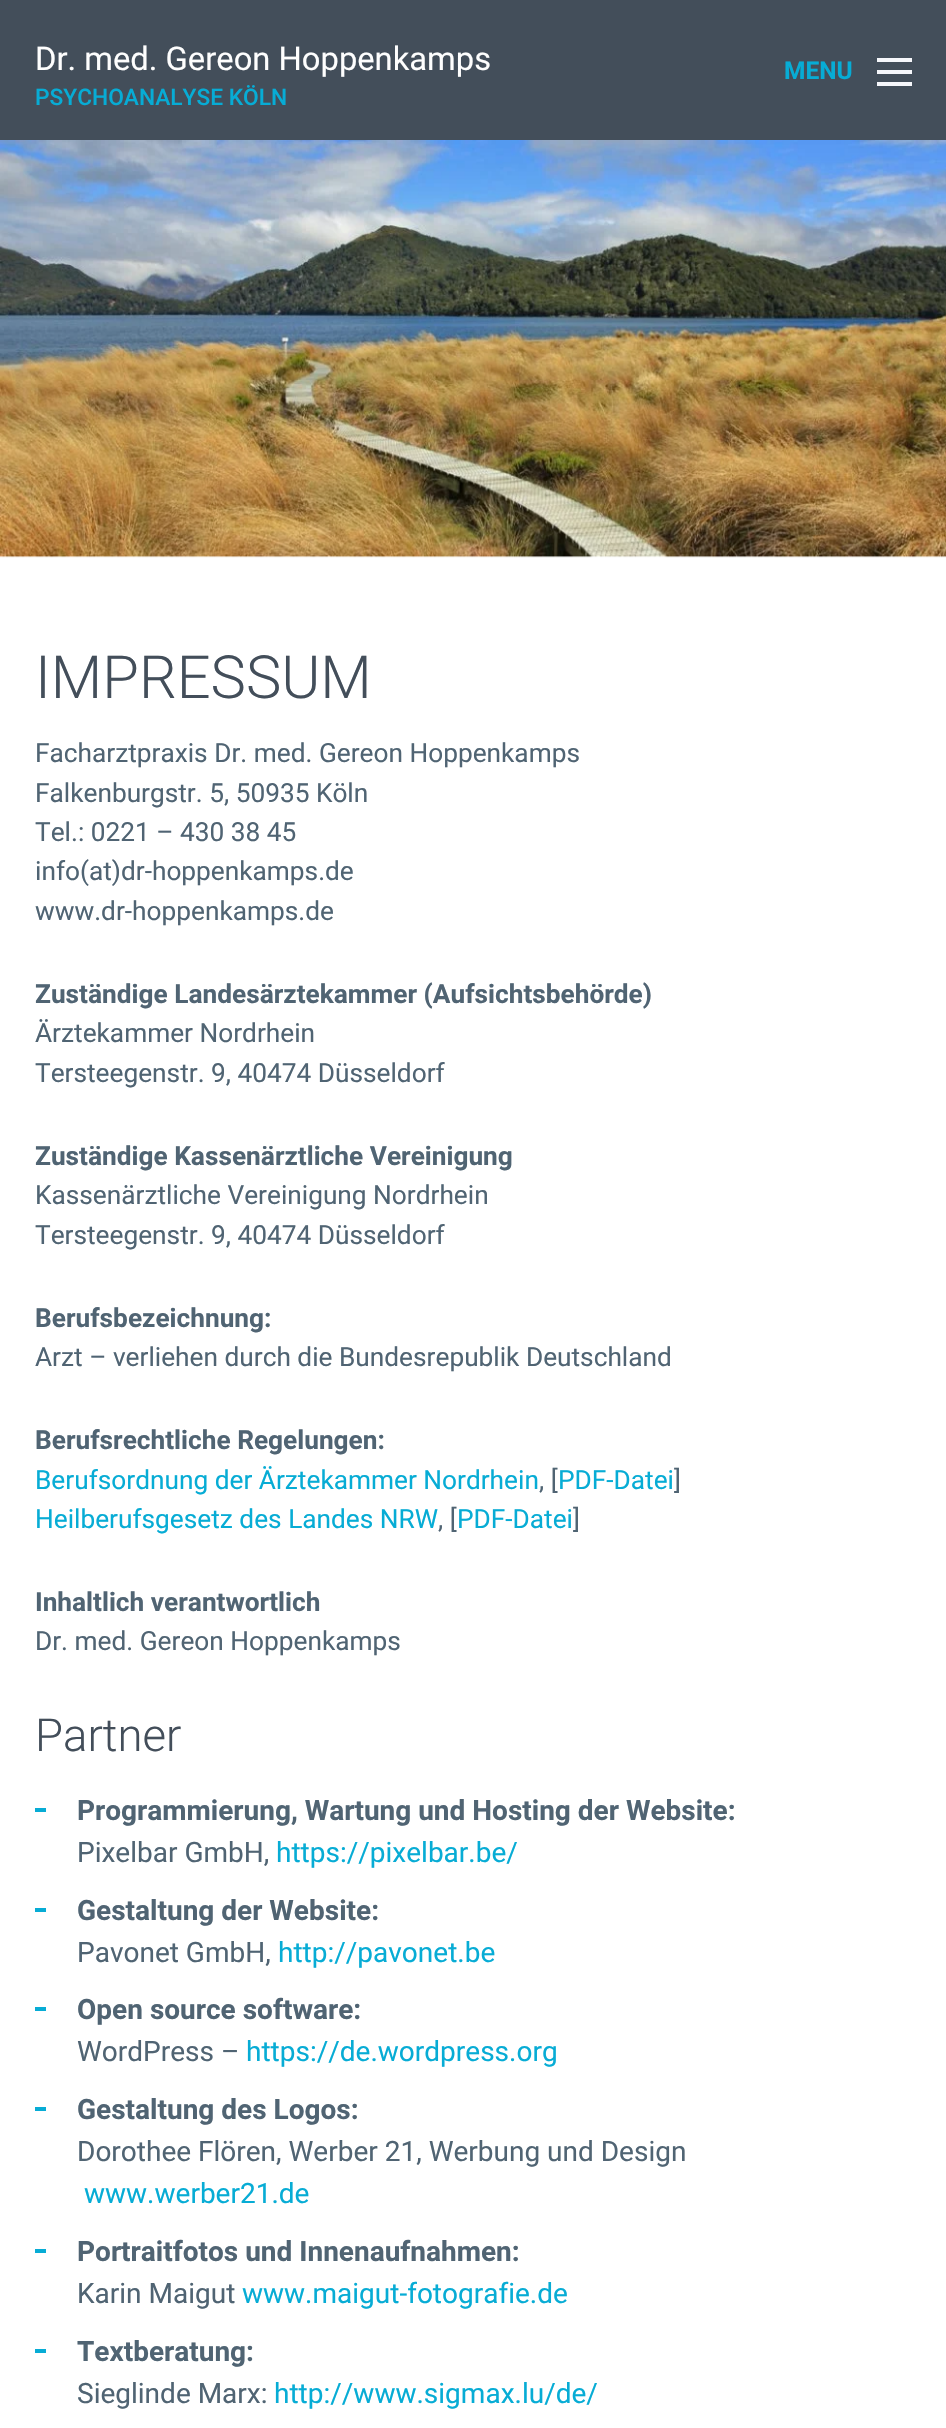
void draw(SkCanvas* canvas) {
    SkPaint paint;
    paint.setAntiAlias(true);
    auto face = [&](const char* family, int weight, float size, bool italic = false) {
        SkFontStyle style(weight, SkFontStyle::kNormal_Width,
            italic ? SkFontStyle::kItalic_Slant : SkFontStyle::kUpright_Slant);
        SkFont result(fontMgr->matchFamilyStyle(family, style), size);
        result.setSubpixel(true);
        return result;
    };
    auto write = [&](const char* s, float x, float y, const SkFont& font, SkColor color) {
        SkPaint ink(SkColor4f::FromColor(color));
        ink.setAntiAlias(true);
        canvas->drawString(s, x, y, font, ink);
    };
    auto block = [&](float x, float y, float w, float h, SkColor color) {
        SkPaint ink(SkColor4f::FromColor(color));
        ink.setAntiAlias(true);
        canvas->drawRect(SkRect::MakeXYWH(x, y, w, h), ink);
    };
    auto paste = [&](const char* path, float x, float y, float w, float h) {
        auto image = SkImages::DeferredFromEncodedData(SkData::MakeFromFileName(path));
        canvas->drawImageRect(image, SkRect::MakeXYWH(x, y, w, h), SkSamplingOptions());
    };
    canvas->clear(SK_ColorWHITE);
    block(0, 0, 946, 140, SkColorSetRGB(67, 78, 90));
    auto kFont1 = face("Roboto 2", 400, 32.75f);
    write("Dr. med. Gereon Hoppenkamps", 35, 70, kFont1, SkColorSetRGB(254, 254, 254));
    auto kFont2 = face("Roboto", 500, 22.75f);
    write("PSYCHOANALYSE KÖLN", 35, 105, kFont2, SkColorSetRGB(7, 172, 213));
    auto kFont3 = face("Roboto 2", 700, 24.5f);
    write("MENU", 784, 79, kFont3, SkColorSetRGB(7, 172, 213));
    block(877, 82, 35, 4, SkColorSetRGB(246, 247, 251));
    block(877, 70, 35, 4, SkColorSetRGB(246, 247, 251));
    block(877, 58, 35, 4, SkColorSetRGB(246, 247, 251));
    paste("pic1.png", 0, 140, 946, 418);
    auto kFont4 = face("Roboto", 300, 59.5f);
    write("IMPRESSUM", 35, 698, kFont4, SkColorSetRGB(67, 78, 90));
    auto kFont5 = face("Roboto", 400, 26.25f);
    write("Facharztpraxis Dr. med. Gereon Hoppenkamps", 35, 762, kFont5, SkColorSetRGB(80, 100, 115));
    write("Falkenburgstr. 5, 50935 Köln", 35, 802, kFont5, SkColorSetRGB(80, 100, 115));
    write("Tel.: 0221 – 430 38 45", 35, 841, kFont5, SkColorSetRGB(80, 100, 115));
    write("info(at)dr-hoppenkamps.de", 35, 880, kFont5, SkColorSetRGB(80, 100, 115));
    write("www.dr-hoppenkamps.de", 35, 920, kFont5, SkColorSetRGB(80, 100, 115));
    auto kFont6 = face("Roboto", 700, 26.25f);
    write("Zuständige Landesärztekammer (Aufsichtsbehörde)", 35, 1003, kFont6, SkColorSetRGB(80, 100, 115));
    write("Ärztekammer Nordrhein", 35, 1042, kFont5, SkColorSetRGB(80, 100, 115));
    write("Tersteegenstr. 9, 40474 Düsseldorf", 35, 1082, kFont5, SkColorSetRGB(80, 100, 115));
    write("Zuständige Kassenärztliche Vereinigung", 35, 1165, kFont6, SkColorSetRGB(80, 100, 115));
    write("Kassenärztliche Vereinigung Nordrhein", 35, 1204, kFont5, SkColorSetRGB(80, 100, 115));
    write("Tersteegenstr. 9, 40474 Düsseldorf", 35, 1244, kFont5, SkColorSetRGB(80, 100, 115));
    write("Berufsbezeichnung:", 35, 1327, kFont6, SkColorSetRGB(80, 100, 115));
    write("Arzt – verliehen durch die Bundesrepublik Deutschland", 35, 1366, kFont5, SkColorSetRGB(80, 100, 115));
    write("Berufsrechtliche Regelungen:", 35, 1449, kFont6, SkColorSetRGB(80, 100, 115));
    write("Berufsordnung der Ärztekammer Nordrhein", 35, 1489, kFont5, SkColorSetRGB(7, 172, 213));
    write(", [", 539, 1489, kFont5, SkColorSetRGB(80, 100, 115));
    write("PDF-Datei", 558, 1489, kFont5, SkColorSetRGB(7, 172, 213));
    write("]", 674, 1489, kFont5, SkColorSetRGB(80, 100, 115));
    write("Heilberufsgesetz des Landes NRW", 35, 1528, kFont5, SkColorSetRGB(7, 172, 213));
    write(", [", 438, 1528, kFont5, SkColorSetRGB(80, 100, 115));
    write("PDF-Datei", 457, 1528, kFont5, SkColorSetRGB(7, 172, 213));
    write("]", 573, 1528, kFont5, SkColorSetRGB(80, 100, 115));
    write("Inhaltlich verantwortlich", 35, 1611, kFont6, SkColorSetRGB(80, 100, 115));
    write("Dr. med. Gereon Hoppenkamps", 35, 1650, kFont5, SkColorSetRGB(80, 100, 115));
    auto kFont7 = face("Roboto", 300, 45.5f);
    write("Partner", 35, 1751, kFont7, SkColorSetRGB(67, 78, 90));
    block(35, 1808, 11, 4, SkColorSetRGB(7, 172, 213));
    auto kFont8 = face("Roboto", 700, 28);
    write("Programmierung, Wartung und Hosting der Website:", 77, 1820, kFont8, SkColorSetRGB(80, 100, 115));
    auto kFont9 = face("Roboto", 400, 28);
    write("Pixelbar GmbH,", 77, 1862, kFont9, SkColorSetRGB(80, 100, 115));
    write("https://pixelbar.be/", 276, 1862, kFont9, SkColorSetRGB(7, 172, 213));
    block(35, 1908, 11, 4, SkColorSetRGB(7, 172, 213));
    write("Gestaltung der Website:", 77, 1920, kFont8, SkColorSetRGB(80, 100, 115));
    write("Pavonet GmbH,", 77, 1962, kFont9, SkColorSetRGB(80, 100, 115));
    write("http://pavonet.be", 278, 1962, kFont9, SkColorSetRGB(7, 172, 213));
    block(35, 2007, 11, 4, SkColorSetRGB(7, 172, 213));
    write("Open source software:", 77, 2019, kFont8, SkColorSetRGB(80, 100, 115));
    write("WordPress –", 77, 2061, kFont9, SkColorSetRGB(80, 100, 115));
    write("https://de.wordpress.org", 246, 2061, kFont9, SkColorSetRGB(7, 172, 213));
    block(35, 2107, 11, 4, SkColorSetRGB(7, 172, 213));
    write("Gestaltung des Logos:", 77, 2119, kFont8, SkColorSetRGB(80, 100, 115));
    write("Dorothee Flören, Werber 21, Werbung und Design", 77, 2161, kFont9, SkColorSetRGB(80, 100, 115));
    write("www.werber21.de", 84, 2203, kFont9, SkColorSetRGB(7, 172, 213));
    block(35, 2249, 11, 4, SkColorSetRGB(7, 172, 213));
    write("Portraitfotos und Innenaufnahmen:", 77, 2261, kFont8, SkColorSetRGB(80, 100, 115));
    write("Karin Maigut", 77, 2303, kFont9, SkColorSetRGB(80, 100, 115));
    write("www.maigut-fotografie.de", 242, 2303, kFont9, SkColorSetRGB(7, 172, 213));
    block(35, 2349, 11, 4, SkColorSetRGB(7, 172, 213));
    write("Textberatung:", 77, 2361, kFont8, SkColorSetRGB(80, 100, 115));
    write("Sieglinde Marx:", 77, 2403, kFont9, SkColorSetRGB(80, 100, 115));
    write("http://www.sigmax.lu/de/", 274, 2403, kFont9, SkColorSetRGB(7, 172, 213));
}
